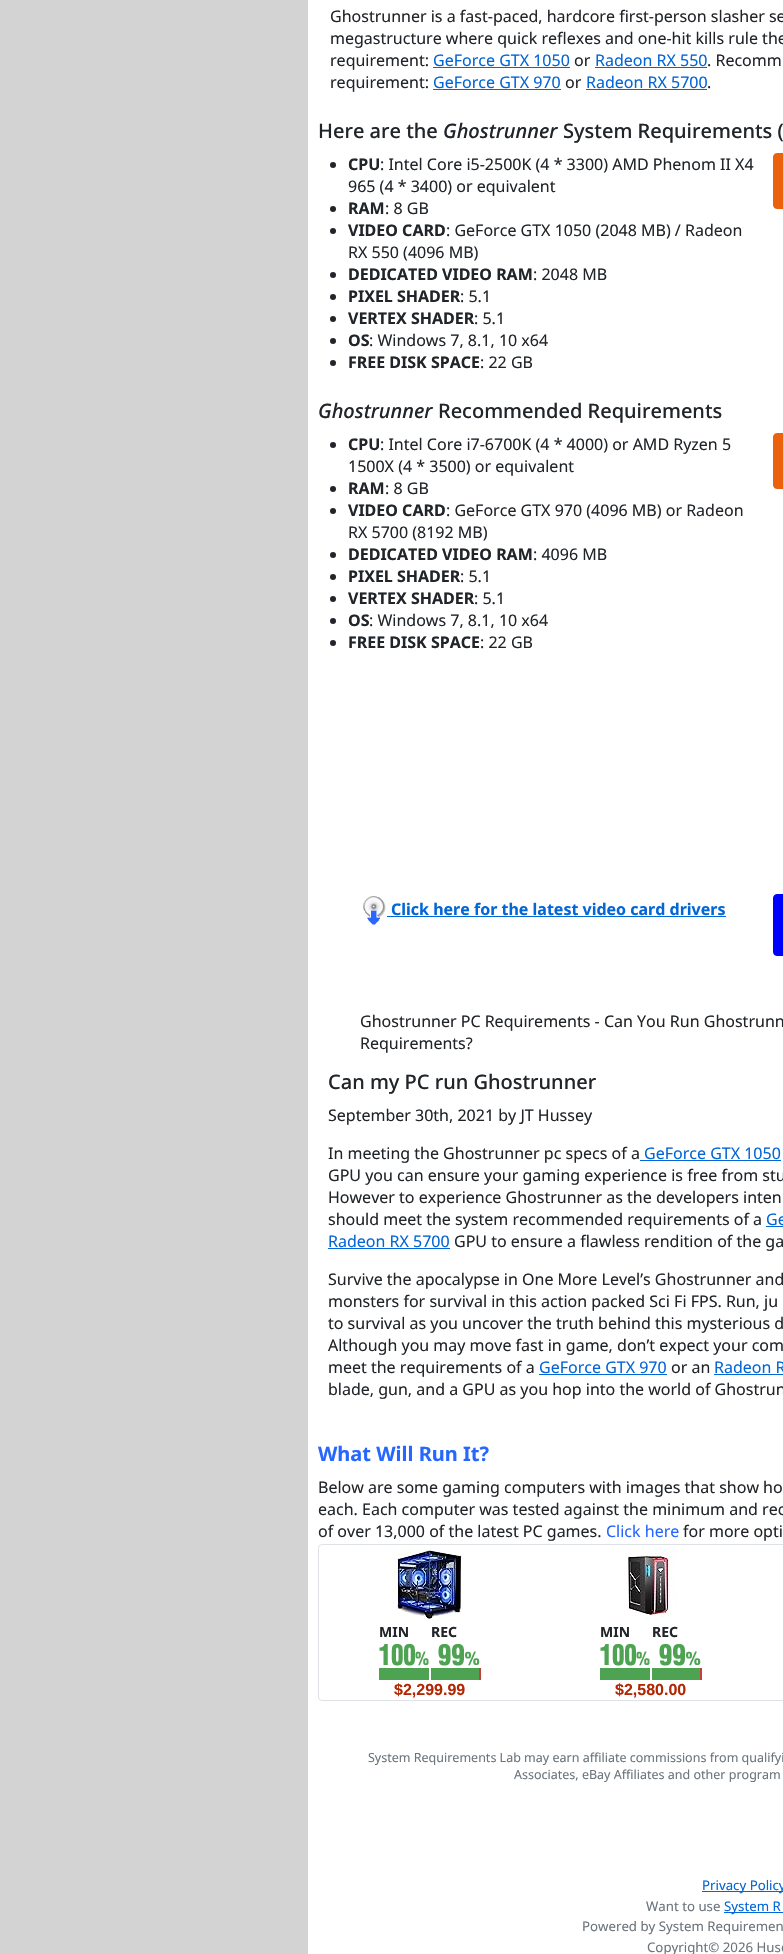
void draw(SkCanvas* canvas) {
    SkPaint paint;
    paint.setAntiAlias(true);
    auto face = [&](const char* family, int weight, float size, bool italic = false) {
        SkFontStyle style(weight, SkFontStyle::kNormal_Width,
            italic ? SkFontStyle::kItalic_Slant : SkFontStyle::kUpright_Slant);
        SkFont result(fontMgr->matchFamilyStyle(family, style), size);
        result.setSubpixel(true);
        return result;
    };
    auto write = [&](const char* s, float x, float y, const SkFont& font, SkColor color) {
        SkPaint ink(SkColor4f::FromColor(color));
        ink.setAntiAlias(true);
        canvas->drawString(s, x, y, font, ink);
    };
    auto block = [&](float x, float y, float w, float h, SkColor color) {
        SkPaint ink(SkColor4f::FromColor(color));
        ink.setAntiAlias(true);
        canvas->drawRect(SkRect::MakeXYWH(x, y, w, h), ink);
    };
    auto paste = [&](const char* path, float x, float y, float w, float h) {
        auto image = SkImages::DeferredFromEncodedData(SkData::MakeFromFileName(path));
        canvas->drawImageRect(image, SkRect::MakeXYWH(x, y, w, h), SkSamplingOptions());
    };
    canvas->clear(SK_ColorWHITE);
    block(0, 0, 308, 1954, SkColorSetRGB(211, 211, 211));
    auto kFont1 = face("Noto Sans", 400, 16);
    write("Ghostrunner is a fast-paced, hardcore first-person slasher se", 330, 22, kFont1, SkColorSetRGB(33, 37, 41));
    write("megastructure where quick reflexes and one-hit kills rule the", 330, 44, kFont1, SkColorSetRGB(33, 37, 41));
    write("requirement:", 330, 66, kFont1, SkColorSetRGB(33, 37, 41));
    write("GeForce GTX 1050", 433, 66, kFont1, SkColorSetRGB(3, 102, 214));
    block(433, 67, 137, 1, SkColorSetRGB(3, 102, 214));
    write("or", 574, 66, kFont1, SkColorSetRGB(33, 37, 41));
    write("Radeon RX 550", 595, 66, kFont1, SkColorSetRGB(3, 102, 214));
    block(595, 67, 112, 1, SkColorSetRGB(3, 102, 214));
    write(". Recomm", 707, 66, kFont1, SkColorSetRGB(33, 37, 41));
    write("requirement:", 330, 88, kFont1, SkColorSetRGB(33, 37, 41));
    write("GeForce GTX 970", 433, 88, kFont1, SkColorSetRGB(3, 102, 214));
    block(433, 89, 128, 1, SkColorSetRGB(3, 102, 214));
    write("or", 565, 88, kFont1, SkColorSetRGB(33, 37, 41));
    write("Radeon RX 5700", 586, 88, kFont1, SkColorSetRGB(3, 102, 214));
    block(586, 89, 121, 1, SkColorSetRGB(3, 102, 214));
    write(".", 707, 88, kFont1, SkColorSetRGB(33, 37, 41));
    auto kFont2 = face("Noto Sans", 500, 20);
    write("Here are the", 318, 138, kFont2, SkColorSetRGB(33, 37, 41));
    auto kFont3 = face("Noto Sans", 500, 20, true);
    write("Ghostrunner", 443, 138, kFont3, SkColorSetRGB(33, 37, 41));
    write("System Requirements (", 563, 138, kFont2, SkColorSetRGB(33, 37, 41));
    paint.setColor(SkColorSetRGB(33, 37, 41));
    canvas->drawCircle(333, 165, 3, paint);
    auto kFont4 = face("Noto Sans", 700, 16);
    write("CPU", 348, 170, kFont4, SkColorSetRGB(33, 37, 41));
    write(": Intel Core i5-2500K (4 * 3300) AMD Phenom II X4", 380, 170, kFont1, SkColorSetRGB(33, 37, 41));
    write("965 (4 * 3400) or equivalent", 348, 192, kFont1, SkColorSetRGB(33, 37, 41));
    canvas->drawCircle(333, 209, 3, paint);
    write("RAM", 348, 214, kFont4, SkColorSetRGB(33, 37, 41));
    write(": 8 GB", 385, 214, kFont1, SkColorSetRGB(33, 37, 41));
    canvas->drawCircle(333, 231, 3, paint);
    write("VIDEO CARD", 348, 236, kFont4, SkColorSetRGB(33, 37, 41));
    write(": GeForce GTX 1050 (2048 MB) / Radeon", 446, 236, kFont1, SkColorSetRGB(33, 37, 41));
    write("RX 550 (4096 MB)", 348, 258, kFont1, SkColorSetRGB(33, 37, 41));
    canvas->drawCircle(333, 275, 3, paint);
    write("DEDICATED VIDEO RAM", 348, 280, kFont4, SkColorSetRGB(33, 37, 41));
    write(": 2048 MB", 533, 280, kFont1, SkColorSetRGB(33, 37, 41));
    canvas->drawCircle(333, 297, 3, paint);
    write("PIXEL SHADER", 348, 302, kFont4, SkColorSetRGB(33, 37, 41));
    write(": 5.1", 460, 302, kFont1, SkColorSetRGB(33, 37, 41));
    canvas->drawCircle(333, 319, 3, paint);
    write("VERTEX SHADER", 348, 324, kFont4, SkColorSetRGB(33, 37, 41));
    write(": 5.1", 474, 324, kFont1, SkColorSetRGB(33, 37, 41));
    canvas->drawCircle(333, 341, 3, paint);
    write("OS", 348, 346, kFont4, SkColorSetRGB(33, 37, 41));
    write(": Windows 7, 8.1, 10 x64", 369, 346, kFont1, SkColorSetRGB(33, 37, 41));
    canvas->drawCircle(333, 363, 3, paint);
    write("FREE DISK SPACE", 348, 368, kFont4, SkColorSetRGB(33, 37, 41));
    write(": 22 GB", 480, 368, kFont1, SkColorSetRGB(33, 37, 41));
    paint.setColor(SkColorSetRGB(236, 97, 13));
    canvas->drawRoundRect(SkRect::MakeXYWH(773.5f, 153.5f, 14, 55), 3.5f, 3.5f, paint);
    paint.setStyle(SkPaint::kStroke_Style);
    paint.setStrokeWidth(1);
    canvas->drawRoundRect(SkRect::MakeXYWH(773.5f, 153.5f, 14, 55), 3.5f, 3.5f, paint);
    write("Ghostrunner", 318, 418, kFont3, SkColorSetRGB(33, 37, 41));
    write("Recommended Requirements", 438, 418, kFont2, SkColorSetRGB(33, 37, 41));
    paint.setStyle(SkPaint::kFill_Style);
    paint.setColor(SkColorSetRGB(33, 37, 41));
    canvas->drawCircle(333, 445, 3, paint);
    write("CPU", 348, 450, kFont4, SkColorSetRGB(33, 37, 41));
    write(": Intel Core i7-6700K (4 * 4000) or AMD Ryzen 5", 380, 450, kFont1, SkColorSetRGB(33, 37, 41));
    write("1500X (4 * 3500) or equivalent", 348, 472, kFont1, SkColorSetRGB(33, 37, 41));
    canvas->drawCircle(333, 489, 3, paint);
    write("RAM", 348, 494, kFont4, SkColorSetRGB(33, 37, 41));
    write(": 8 GB", 385, 494, kFont1, SkColorSetRGB(33, 37, 41));
    canvas->drawCircle(333, 511, 3, paint);
    write("VIDEO CARD", 348, 516, kFont4, SkColorSetRGB(33, 37, 41));
    write(": GeForce GTX 970 (4096 MB) or Radeon", 446, 516, kFont1, SkColorSetRGB(33, 37, 41));
    write("RX 5700 (8192 MB)", 348, 538, kFont1, SkColorSetRGB(33, 37, 41));
    canvas->drawCircle(333, 555, 3, paint);
    write("DEDICATED VIDEO RAM", 348, 560, kFont4, SkColorSetRGB(33, 37, 41));
    write(": 4096 MB", 533, 560, kFont1, SkColorSetRGB(33, 37, 41));
    canvas->drawCircle(333, 577, 3, paint);
    write("PIXEL SHADER", 348, 582, kFont4, SkColorSetRGB(33, 37, 41));
    write(": 5.1", 460, 582, kFont1, SkColorSetRGB(33, 37, 41));
    canvas->drawCircle(333, 599, 3, paint);
    write("VERTEX SHADER", 348, 604, kFont4, SkColorSetRGB(33, 37, 41));
    write(": 5.1", 474, 604, kFont1, SkColorSetRGB(33, 37, 41));
    canvas->drawCircle(333, 621, 3, paint);
    write("OS", 348, 626, kFont4, SkColorSetRGB(33, 37, 41));
    write(": Windows 7, 8.1, 10 x64", 369, 626, kFont1, SkColorSetRGB(33, 37, 41));
    canvas->drawCircle(333, 643, 3, paint);
    write("FREE DISK SPACE", 348, 648, kFont4, SkColorSetRGB(33, 37, 41));
    write(": 22 GB", 480, 648, kFont1, SkColorSetRGB(33, 37, 41));
    paint.setColor(SkColorSetRGB(236, 97, 13));
    canvas->drawRoundRect(SkRect::MakeXYWH(773.5f, 433.5f, 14, 55), 3.5f, 3.5f, paint);
    paint.setStyle(SkPaint::kStroke_Style);
    canvas->drawRoundRect(SkRect::MakeXYWH(773.5f, 433.5f, 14, 55), 3.5f, 3.5f, paint);
    paste("pic1.png", 363, 896, 23, 29);
    write("Click here for the latest video card drivers", 391, 915, kFont4, SkColorSetRGB(3, 102, 214));
    block(387, 916, 339, 1, SkColorSetRGB(3, 102, 214));
    paint.setStyle(SkPaint::kFill_Style);
    paint.setColor(SkColorSetRGB(0, 0, 255));
    canvas->drawRoundRect(SkRect::MakeXYWH(773.5f, 894.5f, 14, 61), 3.5f, 3.5f, paint);
    paint.setStyle(SkPaint::kStroke_Style);
    canvas->drawRoundRect(SkRect::MakeXYWH(773.5f, 894.5f, 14, 61), 3.5f, 3.5f, paint);
    write("Ghostrunner PC Requirements - Can You Run Ghostrunn", 360, 1027, kFont1, SkColorSetRGB(33, 37, 41));
    write("Requirements?", 360, 1049, kFont1, SkColorSetRGB(33, 37, 41));
    write("Can my PC run Ghostrunner", 328, 1089, kFont2, SkColorSetRGB(33, 37, 41));
    write("September 30th, 2021 by JT Hussey", 328, 1121, kFont1, SkColorSetRGB(33, 37, 41));
    write("In meeting the Ghostrunner pc specs of a", 328, 1159, kFont1, SkColorSetRGB(33, 37, 41));
    write("GeForce GTX 1050", 644, 1159, kFont1, SkColorSetRGB(3, 102, 214));
    block(640, 1160, 141, 1, SkColorSetRGB(3, 102, 214));
    write("GPU you can ensure your gaming experience is free from stu", 328, 1181, kFont1, SkColorSetRGB(33, 37, 41));
    write("However to experience Ghostrunner as the developers inten", 328, 1203, kFont1, SkColorSetRGB(33, 37, 41));
    write("should meet the system recommended requirements of a", 328, 1225, kFont1, SkColorSetRGB(33, 37, 41));
    write("Ge", 766, 1225, kFont1, SkColorSetRGB(3, 102, 214));
    block(766, 1226, 17, 1, SkColorSetRGB(3, 102, 214));
    write("Radeon RX 5700", 328, 1247, kFont1, SkColorSetRGB(3, 102, 214));
    block(328, 1248, 122, 1, SkColorSetRGB(3, 102, 214));
    write("GPU to ensure a flawless rendition of the ga", 454, 1247, kFont1, SkColorSetRGB(33, 37, 41));
    write("Survive the apocalypse in One More Level’s Ghostrunner and", 328, 1285, kFont1, SkColorSetRGB(33, 37, 41));
    write("monsters for survival in this action packed Sci Fi FPS. Run, ju", 328, 1307, kFont1, SkColorSetRGB(33, 37, 41));
    write("to survival as you uncover the truth behind this mysterious d", 328, 1329, kFont1, SkColorSetRGB(33, 37, 41));
    write("Although you may move fast in game, don’t expect your com", 328, 1351, kFont1, SkColorSetRGB(33, 37, 41));
    write("meet the requirements of a", 328, 1373, kFont1, SkColorSetRGB(33, 37, 41));
    write("GeForce GTX 970", 539, 1373, kFont1, SkColorSetRGB(3, 102, 214));
    block(539, 1374, 128, 1, SkColorSetRGB(3, 102, 214));
    write("or an", 671, 1373, kFont1, SkColorSetRGB(33, 37, 41));
    write("Radeon R", 714, 1373, kFont1, SkColorSetRGB(3, 102, 214));
    block(714, 1374, 69, 1, SkColorSetRGB(3, 102, 214));
    write("blade, gun, and a GPU as you hop into the world of Ghostrun", 328, 1395, kFont1, SkColorSetRGB(33, 37, 41));
    auto kFont5 = face("Noto Sans", 700, 20);
    write("What Will Run It?", 318, 1461, kFont5, SkColorSetRGB(38, 103, 255));
    write("Below are some gaming computers with images that show ho", 318, 1493, kFont1, SkColorSetRGB(33, 37, 41));
    write("each. Each computer was tested against the minimum and rec", 318, 1515, kFont1, SkColorSetRGB(33, 37, 41));
    write("of over 13,000 of the latest PC games.", 318, 1537, kFont1, SkColorSetRGB(33, 37, 41));
    write("Click here", 606, 1537, kFont1, SkColorSetRGB(38, 103, 255));
    write("for more opti", 683, 1537, kFont1, SkColorSetRGB(33, 37, 41));
    paint.setColor(SkColorSetRGB(222, 226, 230));
    canvas->drawRoundRect(SkRect::MakeXYWH(318.5f, 1544.5f, 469, 156), 3.5f, 3.5f, paint);
    paste("pic2.png", 392, 1546, 72, 75);
    auto kFont6 = face("Noto Sans", 700, 14);
    write("MIN", 379, 1637, kFont6, SkColorSetRGB(33, 37, 41));
    write("REC", 431, 1637, kFont6, SkColorSetRGB(33, 37, 41));
    paste("pic3.png", 379, 1644, 50, 36);
    paste("pic4.png", 431, 1644, 50, 36);
    auto kFont7 = face("Liberation Sans", 700, 16);
    write("$2,299.99", 394, 1695, kFont7, SkColorSetRGB(177, 39, 4));
    paste("pic5.png", 628, 1546, 49, 74);
    write("MIN", 600, 1637, kFont6, SkColorSetRGB(33, 37, 41));
    write("REC", 652, 1637, kFont6, SkColorSetRGB(33, 37, 41));
    paste("pic3.png", 600, 1644, 50, 36);
    paste("pic4.png", 652, 1644, 50, 36);
    write("$2,580.00", 615, 1695, kFont7, SkColorSetRGB(177, 39, 4));
    auto kFont8 = face("Noto Sans", 400, 12.5f);
    write("System Requirements Lab may earn affiliate commissions from qualifyi", 368, 1762, kFont8, SkColorSetRGB(108, 117, 125));
    write("Associates, eBay Affiliates and other program", 514, 1779, kFont8, SkColorSetRGB(108, 117, 125));
    block(702, 1891, 81, 1, SkColorSetRGB(3, 102, 214));
    auto kFont9 = face("Noto Sans", 400, 13.25f);
    write("Privacy Policy", 702, 1890, kFont9, SkColorSetRGB(3, 102, 214));
    write("Want to use", 646, 1911, kFont9, SkColorSetRGB(108, 117, 125));
    block(724, 1912, 59, 1, SkColorSetRGB(3, 102, 214));
    write("System R", 724, 1911, kFont9, SkColorSetRGB(3, 102, 214));
    write("Powered by System Requiremen", 582, 1931, kFont9, SkColorSetRGB(108, 117, 125));
    write("Copyright© 2026 Husd", 647, 1952, kFont9, SkColorSetRGB(108, 117, 125));
}
